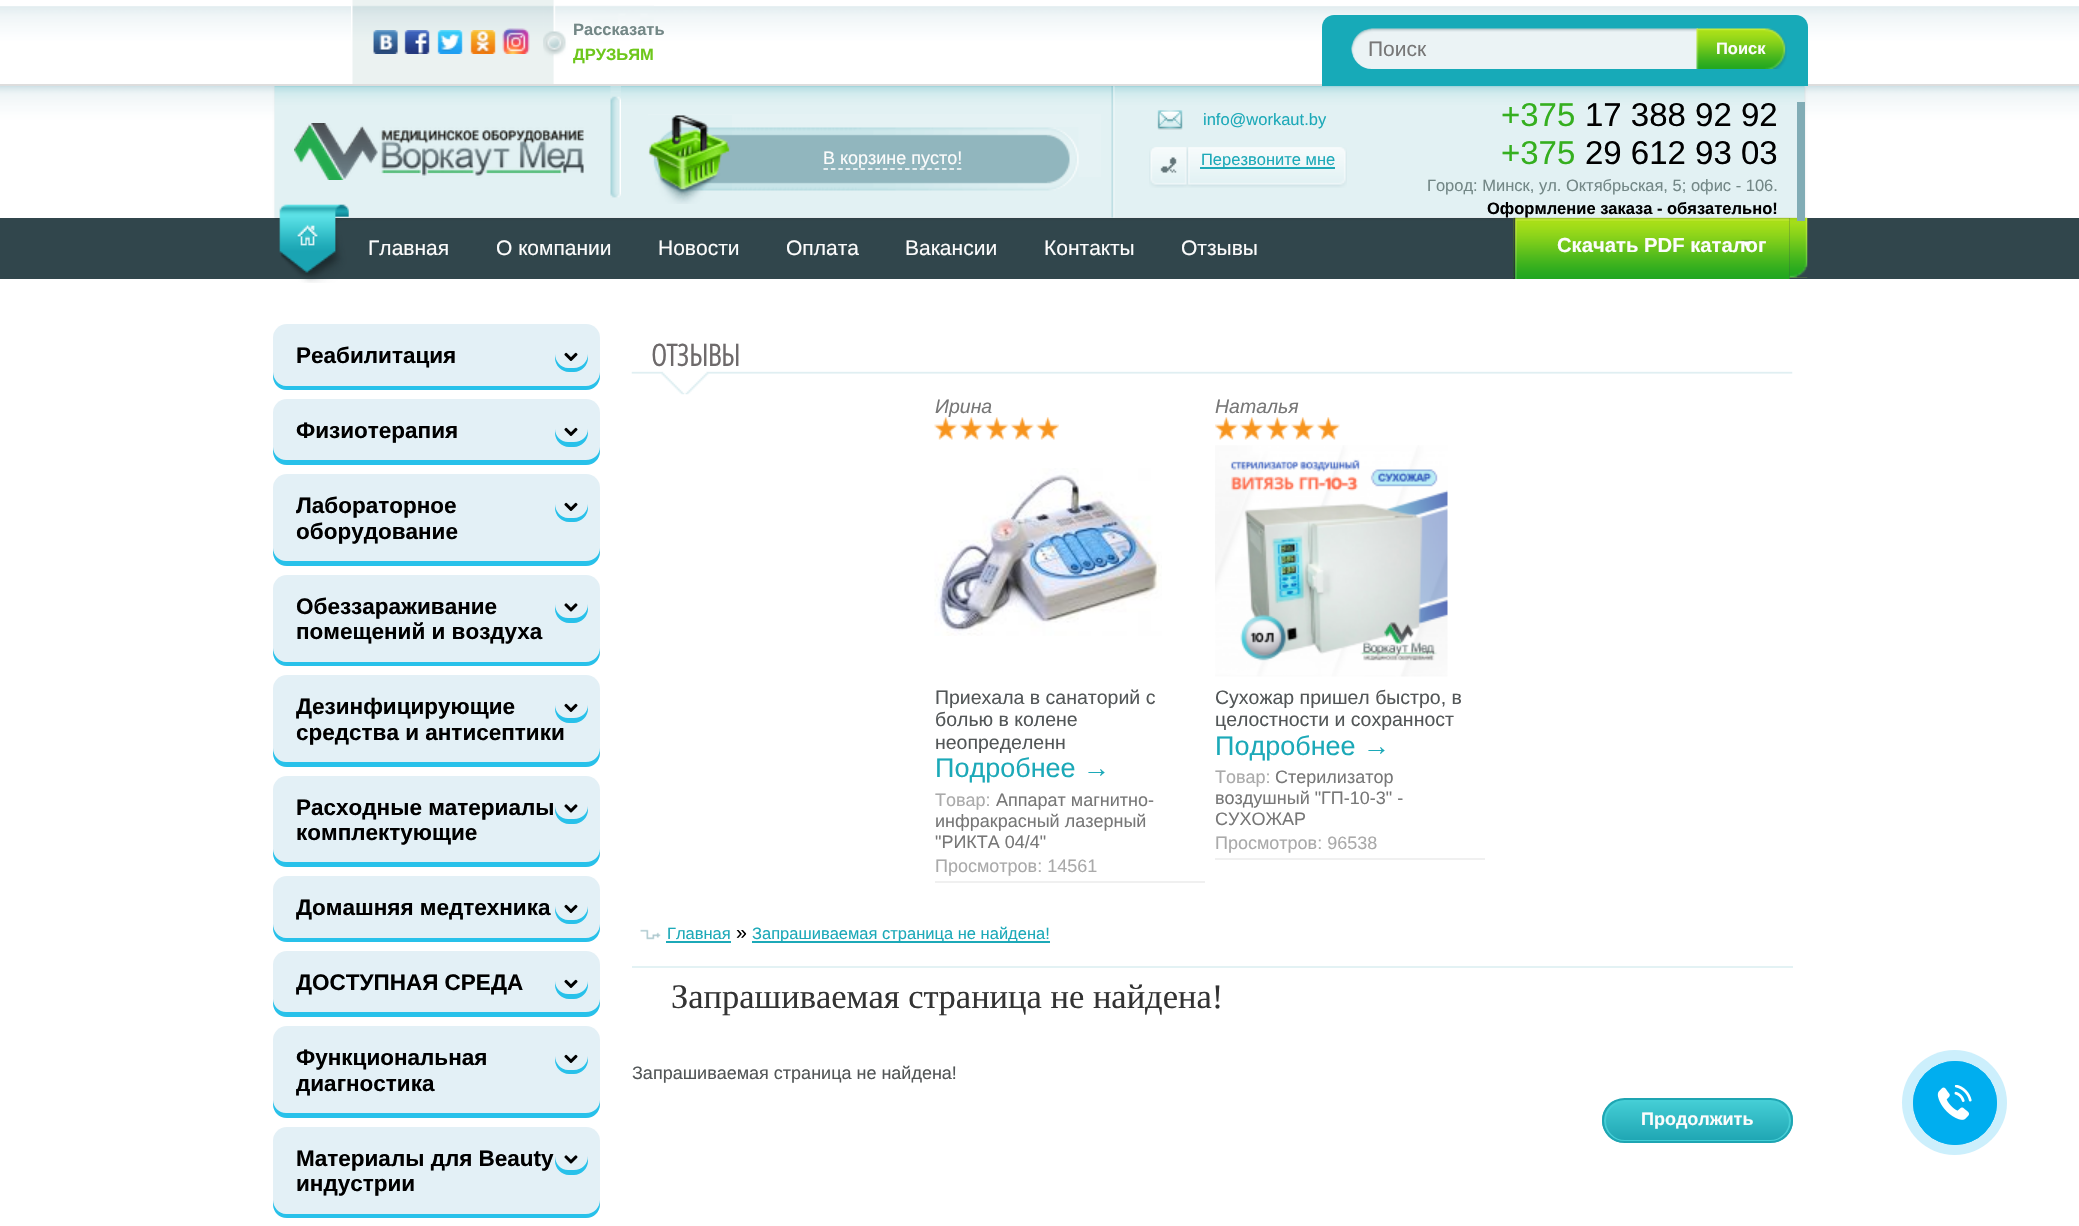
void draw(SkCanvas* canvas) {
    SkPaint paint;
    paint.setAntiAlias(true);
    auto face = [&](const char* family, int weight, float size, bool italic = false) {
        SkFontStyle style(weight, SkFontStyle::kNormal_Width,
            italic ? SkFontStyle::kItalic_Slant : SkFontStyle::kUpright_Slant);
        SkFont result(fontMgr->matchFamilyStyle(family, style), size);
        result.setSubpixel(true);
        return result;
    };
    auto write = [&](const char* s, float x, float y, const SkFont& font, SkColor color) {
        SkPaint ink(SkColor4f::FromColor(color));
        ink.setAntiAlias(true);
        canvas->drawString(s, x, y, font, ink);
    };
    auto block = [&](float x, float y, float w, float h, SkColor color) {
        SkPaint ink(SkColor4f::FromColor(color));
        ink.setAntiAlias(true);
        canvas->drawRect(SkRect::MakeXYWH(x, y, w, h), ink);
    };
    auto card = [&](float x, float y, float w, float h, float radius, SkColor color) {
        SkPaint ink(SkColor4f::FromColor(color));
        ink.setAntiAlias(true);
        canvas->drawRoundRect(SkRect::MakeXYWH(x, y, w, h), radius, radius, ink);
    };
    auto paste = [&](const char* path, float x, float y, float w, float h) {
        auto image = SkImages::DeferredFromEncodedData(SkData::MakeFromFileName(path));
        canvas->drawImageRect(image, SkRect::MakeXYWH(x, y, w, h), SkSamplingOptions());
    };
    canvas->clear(SK_ColorWHITE);
    block(0, 218, 2079, 61, SkColorSetRGB(49, 70, 76));
    paste("pic21.png", 1513, 217, 295, 61);
    paste("pic22.png", 1513, 217, 277, 62);
    paste("pic11.png", 0, 86, 2079, 132);
    paint.setColor(SkColorSetARGB(26, 0, 0, 0));
    paint.setMaskFilter(SkMaskFilter::MakeBlur(kNormal_SkBlurStyle, 1));
    canvas->drawRect(SkRect::MakeXYWH(275, 87, 1530, 132), paint);
    paint.setMaskFilter(nullptr);
    paste("pic1.png", 0, 6, 2079, 78);
    block(0, 84, 2079, 2, SkColorSetRGB(221, 221, 221));
    paste("pic2.png", 351, 0, 193, 84);
    paste("pic3.png", 373, 30, 25, 24);
    paste("pic4.png", 404, 30, 26, 24);
    paste("pic5.png", 437, 30, 26, 24);
    paste("pic6.png", 470, 30, 26, 24);
    paste("pic7.png", 502, 28, 28, 26);
    paste("pic8.png", 543, 0, 111, 84);
    auto kFont1 = face("Liberation Sans", 700, 16.5f);
    write("Рассказать", 573, 35, kFont1, SkColorSetRGB(115, 135, 134));
    write("ДРУЗЬЯМ", 573, 60, kFont1, SkColorSetRGB(110, 199, 28));
    paint.setColor(SkColorSetRGB(23, 170, 184));
    canvas->drawPath(SkPathBuilder().moveTo(1334, 15).lineTo(1796, 15).cubicTo(1802.5f, 15, 1808, 20.5f, 1808, 27).lineTo(1808, 86).lineTo(1322, 86).lineTo(1322, 27).cubicTo(1322, 20.5f, 1327.5f, 15, 1334, 15).close().detach(), paint);
    paste("pic9.png", 1351, 28, 347, 41);
    auto kFont2 = face("Liberation Sans", 400, 21);
    write("Поиск", 1368, 56, kFont2, SkColorSetRGB(119, 119, 119));
    paste("pic10.png", 1696, 28, 91, 41);
    write("Поиск", 1716, 54, kFont1, SkColorSetRGB(252, 252, 252));
    paste("pic12.png", 274, 86, 1531, 132);
    paste("pic13.png", 294, 123, 290, 57);
    paste("pic14.png", 610, 86, 11, 112);
    block(648, 114, 453, 63, SkColorSetRGB(229, 242, 244));
    paste("pic15.png", 648, 115, 84, 89);
    paste("pic16.png", 732, 127, 347, 64);
    auto kFont3 = face("Liberation Sans", 400, 18);
    write("В корзине пусто!", 823, 164, kFont3, SkColorSetRGB(252, 252, 252));
    paint.setStyle(SkPaint::kStroke_Style);
    paint.setStrokeWidth(1.5f);
    paint.setColor(SK_ColorWHITE);
    paint.setPathEffect(SkDashPathEffect::Make({{4.5f, 2.91f}}, 0));
    canvas->drawPath(SkPathBuilder().moveTo(823.5f, 169).lineTo(961.5f, 169).detach(), paint);
    paint.setPathEffect(nullptr);
    paste("pic17.png", 1111, 86, 4, 132);
    paste("pic18.png", 1157, 110, 26, 20);
    auto kFont4 = face("Liberation Sans", 400, 16.5f);
    write("info@workaut.by", 1203, 125, kFont4, SkColorSetRGB(28, 169, 184));
    paste("pic19.png", 1149, 147, 198, 41);
    block(1200, 167, 135, 2, SkColorSetRGB(28, 169, 184));
    write("Перезвоните мне", 1201, 165, kFont4, SkColorSetRGB(28, 169, 184));
    block(1797, 102, 8, 119, SkColorSetRGB(129, 172, 181));
    auto kFont5 = face("Liberation Sans", 400, 33);
    write("+375", 1501, 126, kFont5, SkColorSetRGB(53, 175, 31));
    write("17 388 92 92", 1585, 126, kFont5, SK_ColorBLACK);
    write("+375", 1501, 164, kFont5, SkColorSetRGB(53, 175, 31));
    write("29 612 93 03", 1585, 164, kFont5, SK_ColorBLACK);
    write("Город: Минск, ул. Октябрьская, 5; офис - 106.", 1427, 191, kFont4, SkColorSetRGB(115, 135, 134));
    write("Оформление заказа - обязательно!", 1487, 214, kFont1, SK_ColorBLACK);
    paste("pic20.png", 279, 204, 70, 79);
    write("Главная", 368, 255, kFont2, SkColorSetRGB(252, 252, 252));
    write("О компании", 496, 255, kFont2, SkColorSetRGB(252, 252, 252));
    write("Новости", 658, 255, kFont2, SkColorSetRGB(252, 252, 252));
    write("Оплата", 786, 255, kFont2, SkColorSetRGB(252, 252, 252));
    write("Вакансии", 905, 255, kFont2, SkColorSetRGB(252, 252, 252));
    write("Контакты", 1044, 255, kFont2, SkColorSetRGB(252, 252, 252));
    write("Отзывы", 1181, 255, kFont2, SkColorSetRGB(252, 252, 252));
    paste("pic23.png", 1741, 239, 12, 9);
    auto kFont6 = face("Liberation Sans", 700, 20.25f);
    write("Скачать PDF каталог", 1557, 252, kFont6, SkColorSetRGB(252, 252, 252));
    card(273, 324, 327, 66, 14, SkColorSetRGB(227, 240, 246));
    paint.setStyle(SkPaint::kFill_Style);
    paint.setColor(SkColorSetRGB(40, 193, 234));
    canvas->drawPath(SkPathBuilder().moveTo(273, 372).lineTo(273, 376).cubicTo(273, 384, 279, 390, 287, 390).lineTo(586, 390).cubicTo(594, 390, 600, 384, 600, 376).lineTo(600, 372).cubicTo(600, 379, 594, 386, 586, 386).lineTo(286, 386).cubicTo(279, 386, 273, 379, 273, 372).close().detach(), paint);
    auto kFont7 = face("Liberation Sans", 700, 22.5f);
    write("Реабилитация", 296, 363, kFont7, SK_ColorBLACK);
    canvas->drawPath(SkPathBuilder().moveTo(555, 354).lineTo(555, 358).cubicTo(555, 365.5f, 561.5f, 372, 569, 372).lineTo(574, 372).cubicTo(581.5f, 372, 588, 365.5f, 588, 358).lineTo(588, 354).cubicTo(588, 361, 582, 368, 574, 368).lineTo(568, 368).cubicTo(561, 368, 555, 361, 555, 354).close().detach(), paint);
    paste("pic24.png", 564, 352, 14, 9);
    card(273, 399, 327, 66, 14, SkColorSetRGB(227, 240, 246));
    canvas->drawPath(SkPathBuilder().moveTo(273, 447).lineTo(273, 451).cubicTo(273, 459, 279, 465, 287, 465).lineTo(586, 465).cubicTo(594, 465, 600, 459, 600, 451).lineTo(600, 447).cubicTo(600, 454, 594, 460, 586, 460).lineTo(286, 460).cubicTo(279, 460, 273, 454, 273, 447).close().detach(), paint);
    write("Физиотерапия", 296, 438, kFont7, SK_ColorBLACK);
    canvas->drawPath(SkPathBuilder().moveTo(555, 429).lineTo(555, 433).cubicTo(555, 440.5f, 561.5f, 447, 569, 447).lineTo(574, 447).cubicTo(581.5f, 447, 588, 440.5f, 588, 433).lineTo(588, 429).cubicTo(588, 436, 582, 442, 574, 442).lineTo(568, 442).cubicTo(561, 442, 555, 436, 555, 429).close().detach(), paint);
    paste("pic24.png", 564, 427, 14, 9);
    card(273, 474, 327, 92, 14, SkColorSetRGB(227, 240, 246));
    canvas->drawPath(SkPathBuilder().moveTo(273, 548).lineTo(273, 552).cubicTo(273, 560, 279, 566, 287, 566).lineTo(586, 566).cubicTo(594, 566, 600, 560, 600, 552).lineTo(600, 548).cubicTo(600, 555, 594, 561, 586, 561).lineTo(286, 561).cubicTo(279, 561, 273, 555, 273, 548).close().detach(), paint);
    write("Лабораторное", 296, 513, kFont7, SK_ColorBLACK);
    write("оборудование", 296, 539, kFont7, SK_ColorBLACK);
    canvas->drawPath(SkPathBuilder().moveTo(555, 504).lineTo(555, 508).cubicTo(555, 515.5f, 561.5f, 522, 569, 522).lineTo(574, 522).cubicTo(581.5f, 522, 588, 515.5f, 588, 508).lineTo(588, 504).cubicTo(588, 511, 582, 518, 574, 518).lineTo(568, 518).cubicTo(561, 518, 555, 511, 555, 504).close().detach(), paint);
    paste("pic24.png", 564, 502, 14, 9);
    card(273, 575, 327, 91, 14, SkColorSetRGB(227, 240, 246));
    canvas->drawPath(SkPathBuilder().moveTo(273, 648).lineTo(273, 652).cubicTo(273, 660, 279, 666, 287, 666).lineTo(586, 666).cubicTo(594, 666, 600, 660, 600, 652).lineTo(600, 648).cubicTo(600, 655, 594, 662, 586, 662).lineTo(286, 662).cubicTo(279, 662, 273, 655, 273, 648).close().detach(), paint);
    write("Обеззараживание", 296, 614, kFont7, SK_ColorBLACK);
    write("помещений и воздуха", 296, 639, kFont7, SK_ColorBLACK);
    canvas->drawPath(SkPathBuilder().moveTo(555, 604).lineTo(555, 609).cubicTo(555, 616.5f, 561.5f, 623, 569, 623).lineTo(574, 623).cubicTo(581.5f, 623, 588, 616.5f, 588, 609).lineTo(588, 604).cubicTo(588, 612, 582, 618, 574, 618).lineTo(568, 618).cubicTo(561, 618, 555, 612, 555, 604).close().detach(), paint);
    paste("pic25.png", 564, 603, 14, 9);
    card(273, 675, 327, 92, 14, SkColorSetRGB(227, 240, 246));
    canvas->drawPath(SkPathBuilder().moveTo(273, 748).lineTo(273, 753).cubicTo(273, 761, 279, 767, 287, 767).lineTo(586, 767).cubicTo(594, 767, 600, 761, 600, 753).lineTo(600, 748).cubicTo(600, 756, 594, 762, 586, 762).lineTo(286, 762).cubicTo(279, 762, 273, 756, 273, 748).close().detach(), paint);
    write("Дезинфицирующие", 296, 714, kFont7, SK_ColorBLACK);
    write("средства и антисептики", 296, 740, kFont7, SK_ColorBLACK);
    canvas->drawPath(SkPathBuilder().moveTo(555, 705).lineTo(555, 709).cubicTo(555, 716.5f, 561.5f, 723, 569, 723).lineTo(574, 723).cubicTo(581.5f, 723, 588, 716.5f, 588, 709).lineTo(588, 705).cubicTo(588, 712, 582, 718, 574, 718).lineTo(568, 718).cubicTo(561, 718, 555, 712, 555, 705).close().detach(), paint);
    paste("pic24.png", 564, 703, 14, 9);
    card(273, 776, 327, 91, 14, SkColorSetRGB(227, 240, 246));
    canvas->drawPath(SkPathBuilder().moveTo(273, 849).lineTo(273, 853).cubicTo(273, 861, 279, 867, 287, 867).lineTo(586, 867).cubicTo(594, 867, 600, 861, 600, 853).lineTo(600, 849).cubicTo(600, 856, 594, 862, 586, 862).lineTo(286, 862).cubicTo(279, 862, 273, 856, 273, 849).close().detach(), paint);
    write("Расходные материалы", 296, 815, kFont7, SK_ColorBLACK);
    write("комплектующие", 296, 840, kFont7, SK_ColorBLACK);
    canvas->drawPath(SkPathBuilder().moveTo(555, 806).lineTo(555, 810).cubicTo(555, 817.5f, 561.5f, 824, 569, 824).lineTo(574, 824).cubicTo(581.5f, 824, 588, 817.5f, 588, 810).lineTo(588, 806).cubicTo(588, 813, 582, 819, 574, 819).lineTo(568, 819).cubicTo(561, 819, 555, 813, 555, 806).close().detach(), paint);
    paste("pic25.png", 564, 804, 14, 9);
    card(273, 876, 327, 66, 14, SkColorSetRGB(227, 240, 246));
    canvas->drawPath(SkPathBuilder().moveTo(273, 924).lineTo(273, 928).cubicTo(273, 936, 279, 942, 287, 942).lineTo(586, 942).cubicTo(594, 942, 600, 936, 600, 928).lineTo(600, 924).cubicTo(600, 931, 594, 938, 586, 938).lineTo(286, 938).cubicTo(279, 938, 273, 931, 273, 924).close().detach(), paint);
    write("Домашняя медтехника", 296, 915, kFont7, SK_ColorBLACK);
    canvas->drawPath(SkPathBuilder().moveTo(555, 906).lineTo(555, 910).cubicTo(555, 917.5f, 561.5f, 924, 569, 924).lineTo(574, 924).cubicTo(581.5f, 924, 588, 917.5f, 588, 910).lineTo(588, 906).cubicTo(588, 913, 582, 920, 574, 920).lineTo(568, 920).cubicTo(561, 920, 555, 913, 555, 906).close().detach(), paint);
    paste("pic24.png", 564, 904, 14, 9);
    card(273, 951, 327, 66, 14, SkColorSetRGB(227, 240, 246));
    canvas->drawPath(SkPathBuilder().moveTo(273, 999).lineTo(273, 1003).cubicTo(273, 1011, 279, 1017, 287, 1017).lineTo(586, 1017).cubicTo(594, 1017, 600, 1011, 600, 1003).lineTo(600, 999).cubicTo(600, 1006, 594, 1012, 586, 1012).lineTo(286, 1012).cubicTo(279, 1012, 273, 1006, 273, 999).close().detach(), paint);
    write("ДОСТУПНАЯ СРЕДА", 296, 990, kFont7, SK_ColorBLACK);
    canvas->drawPath(SkPathBuilder().moveTo(555, 981).lineTo(555, 985).cubicTo(555, 992.5f, 561.5f, 999, 569, 999).lineTo(574, 999).cubicTo(581.5f, 999, 588, 992.5f, 588, 985).lineTo(588, 981).cubicTo(588, 988, 582, 994, 574, 994).lineTo(568, 994).cubicTo(561, 994, 555, 988, 555, 981).close().detach(), paint);
    paste("pic24.png", 564, 979, 14, 9);
    card(273, 1026, 327, 92, 14, SkColorSetRGB(227, 240, 246));
    canvas->drawPath(SkPathBuilder().moveTo(273, 1100).lineTo(273, 1104).cubicTo(273, 1112, 279, 1118, 287, 1118).lineTo(586, 1118).cubicTo(594, 1118, 600, 1112, 600, 1104).lineTo(600, 1100).cubicTo(600, 1107, 594, 1113, 586, 1113).lineTo(286, 1113).cubicTo(279, 1113, 273, 1107, 273, 1100).close().detach(), paint);
    write("Функциональная", 296, 1065, kFont7, SK_ColorBLACK);
    write("диагностика", 296, 1091, kFont7, SK_ColorBLACK);
    canvas->drawPath(SkPathBuilder().moveTo(555, 1056).lineTo(555, 1060).cubicTo(555, 1067.5f, 561.5f, 1074, 569, 1074).lineTo(574, 1074).cubicTo(581.5f, 1074, 588, 1067.5f, 588, 1060).lineTo(588, 1056).cubicTo(588, 1063, 582, 1070, 574, 1070).lineTo(568, 1070).cubicTo(561, 1070, 555, 1063, 555, 1056).close().detach(), paint);
    paste("pic24.png", 564, 1054, 14, 9);
    card(273, 1127, 327, 91, 14, SkColorSetRGB(227, 240, 246));
    canvas->drawPath(SkPathBuilder().moveTo(273, 1200).lineTo(273, 1204).cubicTo(273, 1212, 279, 1218, 287, 1218).lineTo(586, 1218).cubicTo(594, 1218, 600, 1212, 600, 1204).lineTo(600, 1200).cubicTo(600, 1207, 594, 1214, 586, 1214).lineTo(286, 1214).cubicTo(279, 1214, 273, 1207, 273, 1200).close().detach(), paint);
    write("Материалы для Beauty", 296, 1166, kFont7, SK_ColorBLACK);
    write("индустрии", 296, 1191, kFont7, SK_ColorBLACK);
    canvas->drawPath(SkPathBuilder().moveTo(555, 1156).lineTo(555, 1161).cubicTo(555, 1168.5f, 561.5f, 1175, 569, 1175).lineTo(574, 1175).cubicTo(581.5f, 1175, 588, 1168.5f, 588, 1161).lineTo(588, 1156).cubicTo(588, 1164, 582, 1170, 574, 1170).lineTo(568, 1170).cubicTo(561, 1170, 555, 1164, 555, 1156).close().detach(), paint);
    paste("pic25.png", 564, 1155, 14, 9);
    paste("pic26.png", 631, 371, 1162, 24);
    auto kFont8 = face("Open Sans", 700, 30);
    write("ОТЗЫВЫ", 651, 366, kFont8, SkColorSetRGB(110, 106, 107));
    auto kFont9 = face("Liberation Sans", 400, 19.5f, true);
    write("Ирина", 935, 413, kFont9, SkColorSetRGB(119, 119, 119));
    paste("pic27.png", 934, 417, 125, 23);
    paste("pic28.png", 934, 468, 228, 168);
    auto kFont10 = face("Liberation Sans", 400, 19.5f);
    write("Приехала в санаторий с", 935, 704, kFont10, SkColorSetRGB(82, 86, 87));
    write("болью в колене", 935, 726, kFont10, SkColorSetRGB(82, 86, 87));
    write("неопределенн", 935, 749, kFont10, SkColorSetRGB(82, 86, 87));
    auto kFont11 = face("Liberation Sans", 400, 27);
    write("Подробнее →", 935, 777, kFont11, SkColorSetRGB(28, 169, 184));
    write("Товар:", 935, 806, kFont3, SkColorSetRGB(170, 170, 170));
    write("Аппарат магнитно-", 996, 806, kFont3, SkColorSetRGB(119, 119, 119));
    write("инфракрасный лазерный", 935, 827, kFont3, SkColorSetRGB(119, 119, 119));
    write("\"РИКТА 04/4\"", 935, 848, kFont3, SkColorSetRGB(119, 119, 119));
    write("Просмотров: 14561", 935, 872, kFont3, SkColorSetRGB(170, 170, 170));
    block(935, 881, 270, 2, SkColorSetRGB(240, 240, 240));
    write("Наталья", 1215, 413, kFont9, SkColorSetRGB(119, 119, 119));
    paste("pic29.png", 1215, 417, 125, 23);
    paste("pic30.png", 1215, 445, 233, 232);
    write("Сухожар пришел быстро, в", 1215, 704, kFont10, SkColorSetRGB(82, 86, 87));
    write("целостности и сохранност", 1215, 726, kFont10, SkColorSetRGB(82, 86, 87));
    write("Подробнее →", 1215, 755, kFont11, SkColorSetRGB(28, 169, 184));
    write("Товар:", 1215, 783, kFont3, SkColorSetRGB(170, 170, 170));
    write("Стерилизатор", 1275, 783, kFont3, SkColorSetRGB(119, 119, 119));
    write("воздушный \"ГП-10-3\" -", 1215, 804, kFont3, SkColorSetRGB(119, 119, 119));
    write("СУХОЖАР", 1215, 825, kFont3, SkColorSetRGB(119, 119, 119));
    write("Просмотров: 96538", 1215, 849, kFont3, SkColorSetRGB(170, 170, 170));
    block(1215, 858, 270, 2, SkColorSetRGB(240, 240, 240));
    paste("pic31.png", 640, 929, 21, 11);
    block(632, 966, 1161, 2, SkColorSetRGB(227, 242, 244));
    write("Главная", 667, 939, kFont4, SkColorSetRGB(28, 169, 184));
    block(666, 941, 65, 2, SkColorSetRGB(28, 169, 184));
    write("»", 736, 939, kFont10, SK_ColorBLACK);
    block(752, 941, 298, 2, SkColorSetRGB(28, 169, 184));
    write("Запрашиваемая страница не найдена!", 752, 939, kFont4, SkColorSetRGB(28, 169, 184));
    auto kFont12 = face("Liberation Serif", 400, 34.5f);
    write("Запрашиваемая страница не найдена!", 671, 1008, kFont12, SkColorSetRGB(51, 51, 51));
    write("Запрашиваемая страница не найдена!", 632, 1079, kFont3, SkColorSetRGB(82, 86, 87));
    canvas->save();
    canvas->clipPath(SkPathBuilder().moveTo(1624.5f, 1098).lineTo(1770.5f, 1098).cubicTo(1783, 1098, 1793, 1108, 1793, 1120.5f).cubicTo(1793, 1133, 1783, 1143, 1770.5f, 1143).lineTo(1624.5f, 1143).cubicTo(1612, 1143, 1602, 1133, 1602, 1120.5f).cubicTo(1602, 1108, 1612, 1098, 1624.5f, 1098).close().detach(), true);
    {
        const SkColor colors[] = {SkColorSetRGB(69, 206, 214), SkColorSetRGB(30, 165, 178)};
        const float stops[] = {0, 1};
        const SkPoint ends[] = {{1697, 1100}, {1697, 1142}};
        paint.setShader(SkGradientShader::MakeLinear(ends, colors, stops, 2, SkTileMode::kClamp));
        paint.setAlpha(255);
    }
    canvas->drawRect(SkRect::MakeXYWH(1602, 1100, 191, 42), paint);
    canvas->restore();
    paint.setStyle(SkPaint::kStroke_Style);
    paint.setStrokeWidth(2);
    paint.setShader(nullptr);
    paint.setColor(SkColorSetRGB(69, 206, 214));
    canvas->drawRoundRect(SkRect::MakeXYWH(1605, 1101, 185, 40), 20, 20, paint);
    paint.setColor(SkColorSetRGB(30, 165, 178));
    canvas->drawRoundRect(SkRect::MakeXYWH(1603, 1099, 189, 43), 21.5f, 21.5f, paint);
    auto kFont13 = face("Liberation Sans", 700, 18);
    write("Продолжить", 1641, 1125, kFont13, SkColorSetRGB(252, 252, 252));
    paint.setStyle(SkPaint::kFill_Style);
    paint.setColor(SkColorSetRGB(204, 239, 252));
    canvas->drawCircle(1954.5f, 1102.5f, 52.5f, paint);
    paint.setStyle(SkPaint::kStroke_Style);
    paint.setStrokeWidth(1);
    paint.setColor(SkColorSetRGB(0, 174, 239));
    canvas->drawCircle(1955, 1103, 41.5f, paint);
    paint.setStyle(SkPaint::kFill_Style);
    canvas->drawCircle(1955, 1103, 42, paint);
    paste("pic32.png", 1937, 1085, 35, 35);
}
